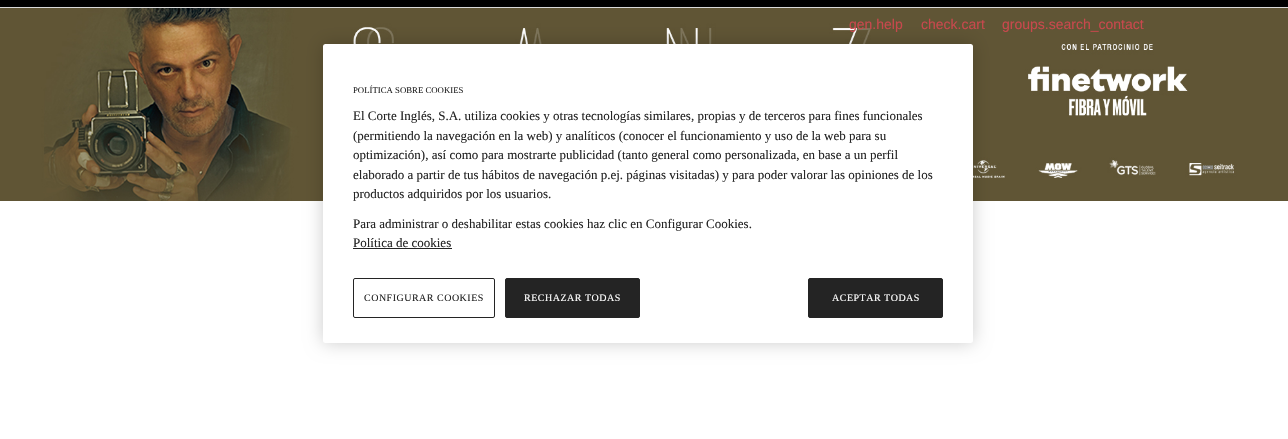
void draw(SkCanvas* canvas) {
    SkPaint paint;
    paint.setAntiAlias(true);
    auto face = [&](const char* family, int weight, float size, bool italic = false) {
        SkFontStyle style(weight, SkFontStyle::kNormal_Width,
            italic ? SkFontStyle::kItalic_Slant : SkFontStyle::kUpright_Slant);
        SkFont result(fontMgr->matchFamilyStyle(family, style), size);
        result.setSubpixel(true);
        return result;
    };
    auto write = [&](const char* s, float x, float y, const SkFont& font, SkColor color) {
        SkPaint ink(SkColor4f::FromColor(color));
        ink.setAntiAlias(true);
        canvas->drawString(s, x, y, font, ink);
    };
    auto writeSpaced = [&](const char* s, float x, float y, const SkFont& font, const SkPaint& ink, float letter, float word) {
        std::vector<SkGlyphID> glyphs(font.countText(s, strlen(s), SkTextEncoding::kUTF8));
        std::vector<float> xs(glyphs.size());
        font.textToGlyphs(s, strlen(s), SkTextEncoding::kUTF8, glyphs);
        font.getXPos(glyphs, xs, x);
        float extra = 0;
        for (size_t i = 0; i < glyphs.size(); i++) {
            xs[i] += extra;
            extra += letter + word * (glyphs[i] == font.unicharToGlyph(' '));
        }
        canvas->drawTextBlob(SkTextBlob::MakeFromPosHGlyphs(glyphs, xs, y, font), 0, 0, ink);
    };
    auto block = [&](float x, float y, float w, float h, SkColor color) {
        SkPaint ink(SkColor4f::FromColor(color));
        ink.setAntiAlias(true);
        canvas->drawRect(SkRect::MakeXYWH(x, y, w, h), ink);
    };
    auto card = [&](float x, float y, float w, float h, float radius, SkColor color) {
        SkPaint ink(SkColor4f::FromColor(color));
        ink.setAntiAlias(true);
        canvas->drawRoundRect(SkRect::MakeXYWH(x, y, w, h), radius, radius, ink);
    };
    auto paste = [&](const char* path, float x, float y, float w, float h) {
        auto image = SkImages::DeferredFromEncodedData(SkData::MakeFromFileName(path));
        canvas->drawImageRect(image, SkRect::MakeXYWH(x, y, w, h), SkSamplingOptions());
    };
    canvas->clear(SK_ColorWHITE);
    paste("pic1.png", 0, 8, 1288, 193);
    block(0, 0, 1288, 7, SK_ColorBLACK);
    block(0, 7, 1288, 1, SkColorSetRGB(217, 217, 217));
    auto kFont1 = face("Liberation Sans", 400, 14);
    write("gen.help", 849, 29, kFont1, SkColorSetRGB(201, 72, 77));
    write("check.cart", 921, 29, kFont1, SkColorSetRGB(201, 72, 77));
    write("groups.search_contact", 1002, 29, kFont1, SkColorSetRGB(201, 72, 77));
    paint.setColor(SkColorSetARGB(51, 0, 0, 0));
    paint.setMaskFilter(SkMaskFilter::MakeBlur(kNormal_SkBlurStyle, 9));
    canvas->drawRoundRect(SkRect::MakeXYWH(323, 44, 650, 299), 2.5f, 2.5f, paint);
    paint.setMaskFilter(nullptr);
    card(323, 44, 650, 299, 2.5f, SK_ColorWHITE);
    auto kFont2 = face("Liberation Serif", 400, 8.75f);
    write("POLÍTICA SOBRE COOKIES", 353, 93, kFont2, SkColorSetRGB(36, 36, 36));
    auto kFont3 = face("Liberation Serif", 400, 13);
    write("El Corte Inglés, S.A. utiliza cookies y otras tecnologías similares, propias y de terceros para fines funcionales", 353, 120, kFont3, SkColorSetRGB(36, 36, 36));
    write("(permitiendo la navegación en la web) y analíticos (conocer el funcionamiento y uso de la web para su", 353, 140, kFont3, SkColorSetRGB(36, 36, 36));
    write("optimización), así como para mostrarte publicidad (tanto general como personalizada, en base a un perfil", 353, 159, kFont3, SkColorSetRGB(36, 36, 36));
    write("elaborado a partir de tus hábitos de navegación p.ej. páginas visitadas) y para poder valorar las opiniones de los", 353, 179, kFont3, SkColorSetRGB(36, 36, 36));
    write("productos adquiridos por los usuarios.", 353, 198, kFont3, SkColorSetRGB(36, 36, 36));
    write("Para administrar o deshabilitar estas cookies haz clic en Configurar Cookies.", 353, 228, kFont3, SkColorSetRGB(36, 36, 36));
    write("Política de cookies", 353, 247, kFont3, SkColorSetRGB(36, 36, 36));
    block(353, 248, 99, 1, SkColorSetRGB(36, 36, 36));
    paint.setStyle(SkPaint::kStroke_Style);
    paint.setStrokeWidth(1);
    paint.setColor(SkColorSetRGB(36, 36, 36));
    canvas->drawRoundRect(SkRect::MakeXYWH(353.5f, 278.5f, 141, 39), 1.5f, 1.5f, paint);
    auto kFont4 = face("Liberation Serif", 400, 10);
    paint.setStyle(SkPaint::kFill_Style);
    writeSpaced("CONFIGURAR COOKIES", 364, 301, kFont4, paint, 0.5f, 0);
    canvas->drawRoundRect(SkRect::MakeXYWH(505.5f, 278.5f, 134, 39), 1.5f, 1.5f, paint);
    paint.setStyle(SkPaint::kStroke_Style);
    canvas->drawRoundRect(SkRect::MakeXYWH(505.5f, 278.5f, 134, 39), 1.5f, 1.5f, paint);
    paint.setStyle(SkPaint::kFill_Style);
    paint.setColor(SK_ColorWHITE);
    writeSpaced("RECHAZAR TODAS", 524, 301, kFont4, paint, 0.5f, 0);
    paint.setColor(SkColorSetRGB(36, 36, 36));
    canvas->drawRoundRect(SkRect::MakeXYWH(808.5f, 278.5f, 134, 39), 1.5f, 1.5f, paint);
    paint.setStyle(SkPaint::kStroke_Style);
    canvas->drawRoundRect(SkRect::MakeXYWH(808.5f, 278.5f, 134, 39), 1.5f, 1.5f, paint);
    paint.setStyle(SkPaint::kFill_Style);
    paint.setColor(SK_ColorWHITE);
    writeSpaced("ACEPTAR TODAS", 832, 301, kFont4, paint, 0.5f, 0);
}
